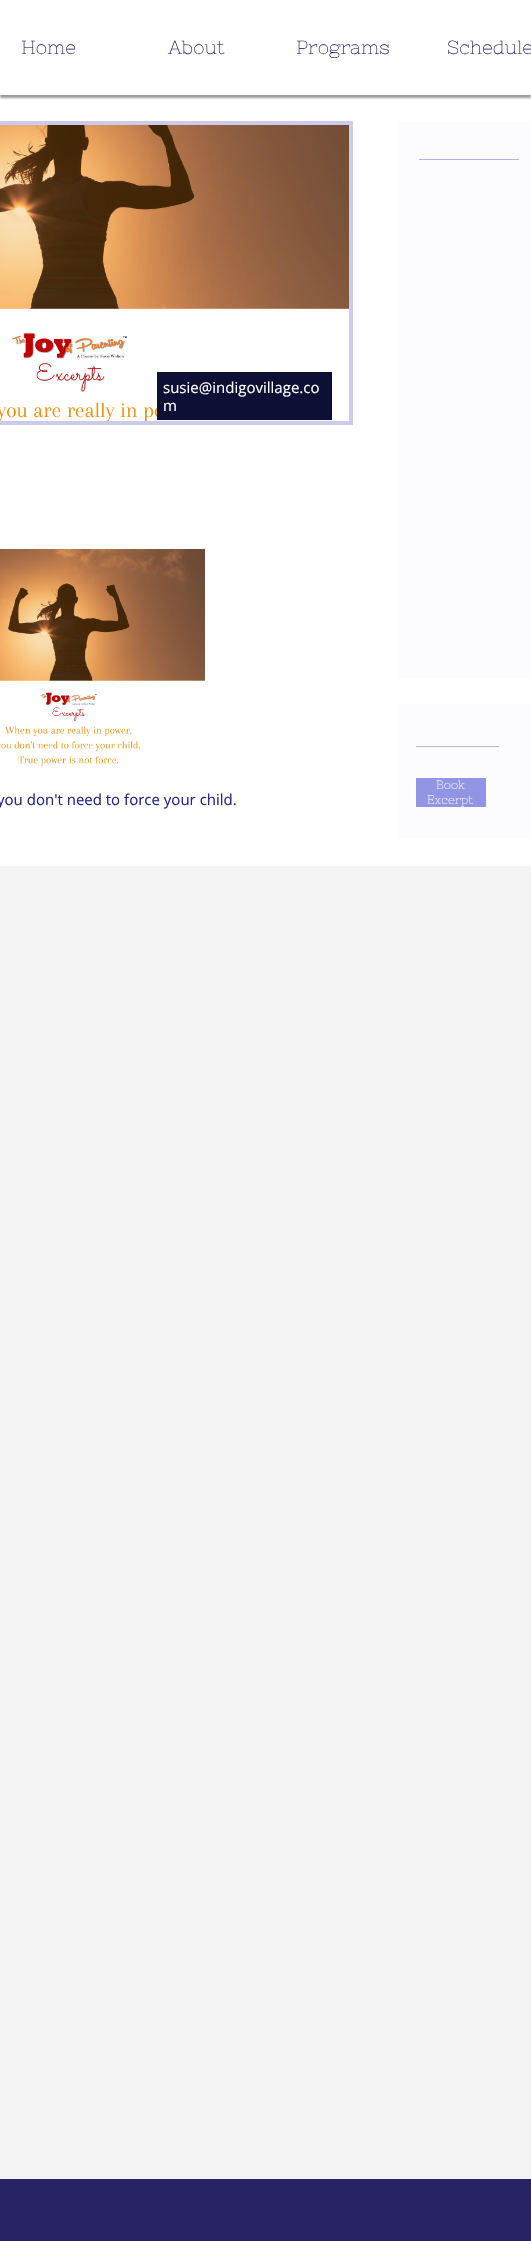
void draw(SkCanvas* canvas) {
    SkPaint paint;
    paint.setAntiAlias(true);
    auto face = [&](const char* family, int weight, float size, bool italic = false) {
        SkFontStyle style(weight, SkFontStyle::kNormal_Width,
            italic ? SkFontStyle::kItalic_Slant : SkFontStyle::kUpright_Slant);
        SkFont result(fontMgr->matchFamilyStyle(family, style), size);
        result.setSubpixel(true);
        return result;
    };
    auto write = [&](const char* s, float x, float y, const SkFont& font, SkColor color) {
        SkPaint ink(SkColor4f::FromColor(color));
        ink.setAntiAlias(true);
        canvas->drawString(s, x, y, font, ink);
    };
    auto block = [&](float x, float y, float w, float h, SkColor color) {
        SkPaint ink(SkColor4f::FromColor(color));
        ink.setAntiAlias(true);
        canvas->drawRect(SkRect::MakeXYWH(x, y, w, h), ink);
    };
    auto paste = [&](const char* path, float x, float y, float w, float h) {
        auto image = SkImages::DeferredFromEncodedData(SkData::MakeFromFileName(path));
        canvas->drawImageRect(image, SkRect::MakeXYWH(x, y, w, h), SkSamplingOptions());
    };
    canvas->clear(SK_ColorWHITE);
    canvas->save();
    canvas->clipRect(SkRect::MakeXYWH(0, 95, 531, 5));
    paint.setColor(SkColorSetARGB(99, 0, 0, 0));
    paint.setMaskFilter(SkMaskFilter::MakeBlur(kNormal_SkBlurStyle, 1));
    canvas->drawRect(SkRect::MakeXYWH(0, 3, 531, 95), paint);
    paint.setMaskFilter(nullptr);
    canvas->restore();
    auto kFont1 = face("Nixie One", 400, 19);
    write("Home", 21, 54, kFont1, SkColorSetRGB(39, 35, 101));
    write("About", 168, 54, kFont1, SkColorSetRGB(39, 35, 101));
    write("Programs", 296, 54, kFont1, SkColorSetRGB(39, 35, 101));
    write("Schedule", 447, 54, kFont1, SkColorSetRGB(39, 35, 101));
    paste("pic1.png", 0, 125, 349, 296);
    paint.setStyle(SkPaint::kStroke_Style);
    paint.setStrokeWidth(4);
    paint.setColor(SkColorSetRGB(204, 202, 237));
    canvas->drawRect(SkRect::MakeXYWH(-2, 123, 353, 300), paint);
    block(397, 121, 134, 558, SkColorSetRGB(252, 252, 254));
    block(419, 159, 100, 1, SkColorSetRGB(181, 178, 228));
    block(157, 372, 175, 48, SkColorSetRGB(14, 15, 53));
    auto kFont2 = face("Open Sans", 400, 15);
    write("susie@indigovillage.co", 163, 393, kFont2, SK_ColorWHITE);
    write("m", 163, 411, kFont2, SK_ColorWHITE);
    paste("pic2.png", 0, 549, 205, 217);
    write("you don't need to force your child.", -3, 805, kFont2, SkColorSetRGB(35, 38, 134));
    block(397, 704, 134, 135, SkColorSetRGB(252, 252, 254));
    block(416, 746, 83, 1, SkColorSetRGB(181, 178, 228));
    block(416, 778, 70, 29, SkColorSetRGB(146, 149, 227));
    auto kFont3 = face("Nixie One", 400, 12);
    write("Book", 436, 789, kFont3, SK_ColorWHITE);
    write("Excerpt", 427, 804, kFont3, SK_ColorWHITE);
    block(0, 866, 531, 1313, SkColorSetRGB(243, 243, 243));
    block(0, 2179, 531, 62, SkColorSetRGB(39, 35, 101));
}
